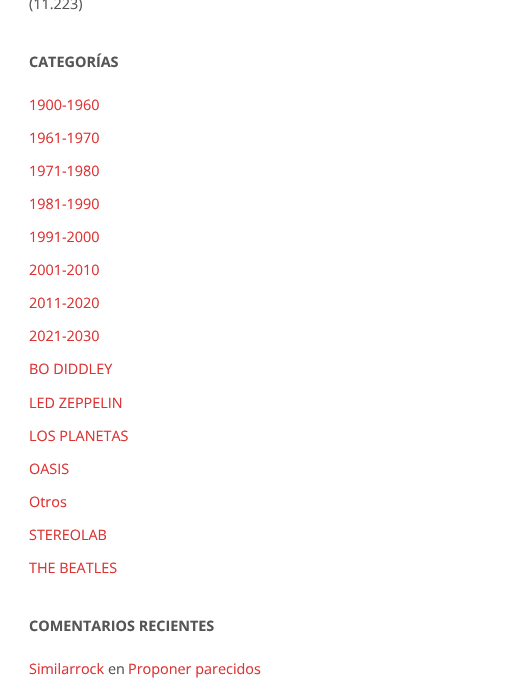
void draw(SkCanvas* canvas) {
    SkPaint paint;
    paint.setAntiAlias(true);
    auto face = [&](const char* family, int weight, float size, bool italic = false) {
        SkFontStyle style(weight, SkFontStyle::kNormal_Width,
            italic ? SkFontStyle::kItalic_Slant : SkFontStyle::kUpright_Slant);
        SkFont result(fontMgr->matchFamilyStyle(family, style), size);
        result.setSubpixel(true);
        return result;
    };
    auto write = [&](const char* s, float x, float y, const SkFont& font, SkColor color) {
        SkPaint ink(SkColor4f::FromColor(color));
        ink.setAntiAlias(true);
        canvas->drawString(s, x, y, font, ink);
    };
    canvas->clear(SK_ColorWHITE);
    auto kFont1 = face("Open Sans", 400, 14.4f);
    write("(11.223)", 29, 9, kFont1, SkColorSetRGB(85, 85, 85));
    auto kFont2 = face("Open Sans", 700, 14.4f);
    write("CATEGORÍAS", 29, 67, kFont2, SkColorSetRGB(85, 85, 85));
    write("1900-1960", 29, 110, kFont1, SkColorSetRGB(221, 51, 51));
    write("1961-1970", 29, 143, kFont1, SkColorSetRGB(221, 51, 51));
    write("1971-1980", 29, 176, kFont1, SkColorSetRGB(221, 51, 51));
    write("1981-1990", 29, 209, kFont1, SkColorSetRGB(221, 51, 51));
    write("1991-2000", 29, 242, kFont1, SkColorSetRGB(221, 51, 51));
    write("2001-2010", 29, 275, kFont1, SkColorSetRGB(221, 51, 51));
    write("2011-2020", 29, 308, kFont1, SkColorSetRGB(221, 51, 51));
    write("2021-2030", 29, 341, kFont1, SkColorSetRGB(221, 51, 51));
    write("BO DIDDLEY", 29, 374, kFont1, SkColorSetRGB(221, 51, 51));
    write("LED ZEPPELIN", 29, 408, kFont1, SkColorSetRGB(221, 51, 51));
    write("LOS PLANETAS", 29, 441, kFont1, SkColorSetRGB(221, 51, 51));
    write("OASIS", 29, 474, kFont1, SkColorSetRGB(221, 51, 51));
    write("Otros", 29, 507, kFont1, SkColorSetRGB(221, 51, 51));
    write("STEREOLAB", 29, 540, kFont1, SkColorSetRGB(221, 51, 51));
    write("THE BEATLES", 29, 573, kFont1, SkColorSetRGB(221, 51, 51));
    write("COMENTARIOS RECIENTES", 29, 631, kFont2, SkColorSetRGB(85, 85, 85));
    write("Similarrock", 29, 674, kFont1, SkColorSetRGB(221, 51, 51));
    write("en", 108, 674, kFont1, SkColorSetRGB(85, 85, 85));
    write("Proponer parecidos", 128, 674, kFont1, SkColorSetRGB(221, 51, 51));
}
